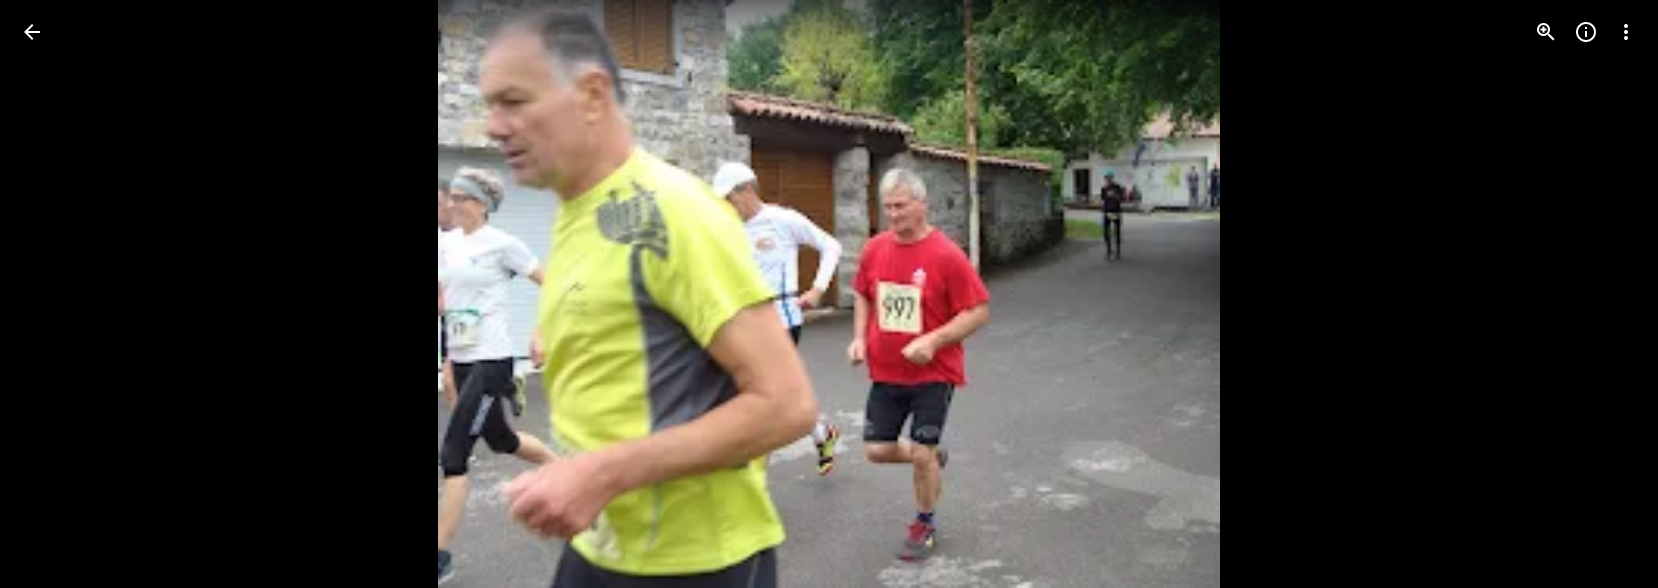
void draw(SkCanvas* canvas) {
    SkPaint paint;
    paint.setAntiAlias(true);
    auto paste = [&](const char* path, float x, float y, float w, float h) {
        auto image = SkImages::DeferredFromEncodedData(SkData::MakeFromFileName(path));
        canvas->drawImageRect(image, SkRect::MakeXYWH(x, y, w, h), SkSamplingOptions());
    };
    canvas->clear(SK_ColorBLACK);
    paste("pic5.png", 438, 0, 782, 588);
    {
        const SkColor colors[] = {SkColorSetARGB(153, 0, 0, 0), SkColorSetARGB(0, 0, 0, 0)};
        const float stops[] = {0, 1};
        const SkPoint ends[] = {{829, 0}, {829, 64}};
        paint.setShader(SkGradientShader::MakeLinear(ends, colors, stops, 2, SkTileMode::kClamp));
        paint.setAlpha(255);
    }
    canvas->drawRect(SkRect::MakeXYWH(438, 0, 782, 62), paint);
    paste("pic1.png", 24, 24, 16, 16);
    paste("pic2.png", 1537, 23, 18, 18);
    paste("pic3.png", 1576, 22, 20, 20);
    paste("pic4.png", 1624, 24, 4, 16);
}
